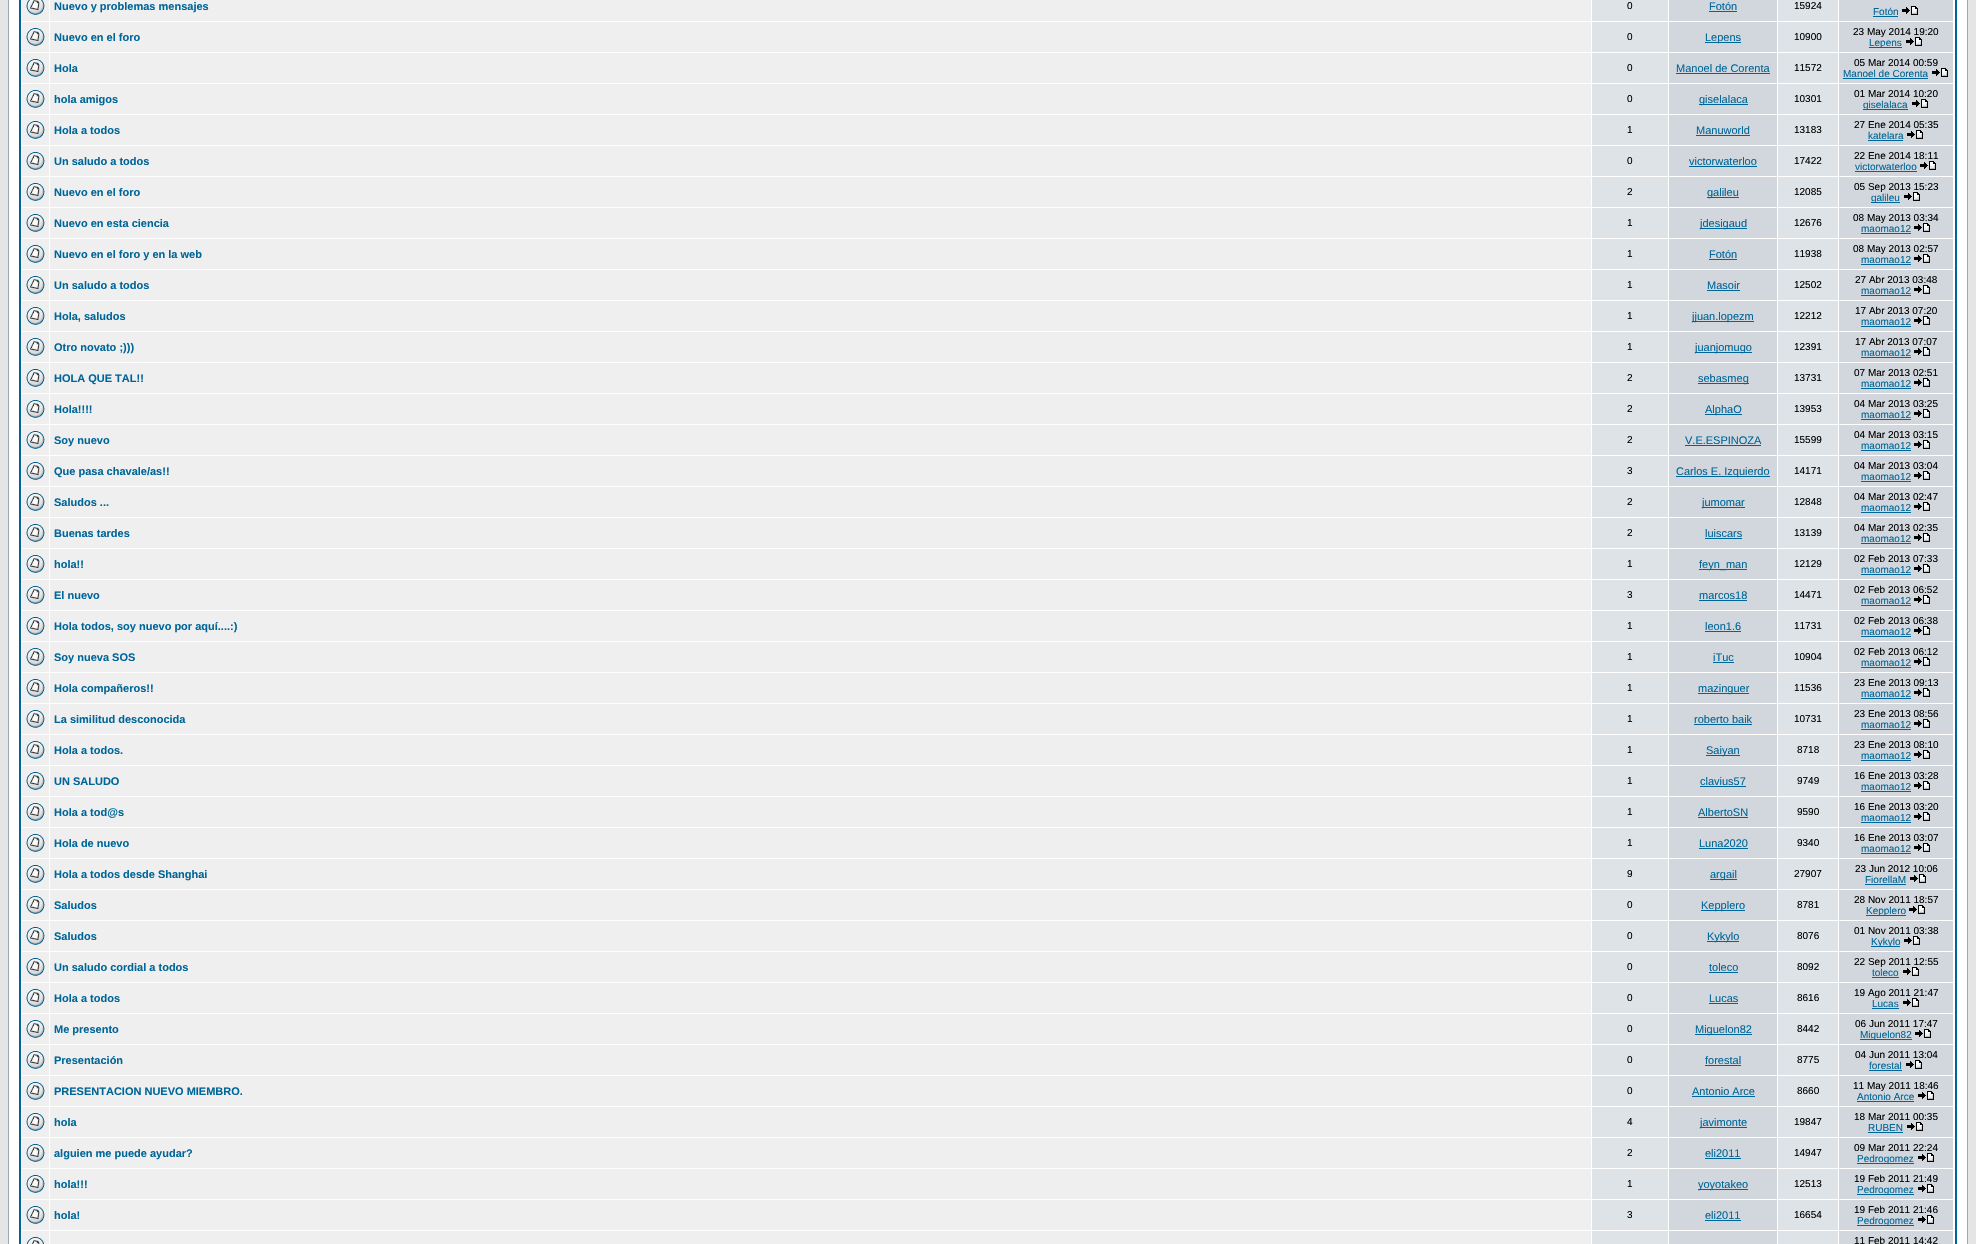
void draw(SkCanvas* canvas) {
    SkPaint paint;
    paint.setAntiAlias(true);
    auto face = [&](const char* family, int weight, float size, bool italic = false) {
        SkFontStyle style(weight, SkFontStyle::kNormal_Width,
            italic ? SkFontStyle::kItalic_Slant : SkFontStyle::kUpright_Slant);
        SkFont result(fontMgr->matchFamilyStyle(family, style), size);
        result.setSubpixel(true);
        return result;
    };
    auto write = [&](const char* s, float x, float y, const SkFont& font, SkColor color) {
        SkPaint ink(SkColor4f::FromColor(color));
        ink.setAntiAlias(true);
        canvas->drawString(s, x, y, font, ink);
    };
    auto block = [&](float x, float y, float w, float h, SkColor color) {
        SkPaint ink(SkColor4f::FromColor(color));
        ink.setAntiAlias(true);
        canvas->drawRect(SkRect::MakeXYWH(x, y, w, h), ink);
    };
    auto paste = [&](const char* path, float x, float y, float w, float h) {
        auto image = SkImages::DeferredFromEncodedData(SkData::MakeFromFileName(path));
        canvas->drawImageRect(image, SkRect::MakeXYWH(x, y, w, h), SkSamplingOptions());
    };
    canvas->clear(SkColorSetRGB(229, 229, 229));
    paint.setColor(SK_ColorWHITE);
    canvas->drawRect(SkRect::MakeXYWH(8.5f, -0.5f, 1959, 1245), paint);
    paint.setStyle(SkPaint::kStroke_Style);
    paint.setStrokeWidth(1);
    paint.setColor(SkColorSetRGB(152, 170, 177));
    canvas->drawRect(SkRect::MakeXYWH(8.5f, -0.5f, 1959, 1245), paint);
    paint.setStrokeWidth(2);
    paint.setColor(SkColorSetRGB(0, 102, 153));
    canvas->drawRect(SkRect::MakeXYWH(20, -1, 1936, 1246), paint);
    block(22, 0, 27, 21, SkColorSetRGB(239, 239, 239));
    paste("pic1.png", 26, 0, 19, 15);
    block(50, 0, 1541, 21, SkColorSetRGB(239, 239, 239));
    auto kFont1 = face("Liberation Sans", 700, 11);
    write("Nuevo y problemas mensajes", 54, 10, kFont1, SkColorSetRGB(0, 102, 153));
    block(1592, 0, 76, 21, SkColorSetRGB(222, 227, 231));
    auto kFont2 = face("Liberation Sans", 400, 10);
    write("0", 1627, 9, kFont2, SK_ColorBLACK);
    block(1669, 0, 108, 21, SkColorSetRGB(209, 215, 220));
    auto kFont3 = face("Liberation Sans", 400, 11);
    write("Fotón", 1709, 10, kFont3, SkColorSetRGB(0, 102, 153));
    block(1709, 11, 28, 1, SkColorSetRGB(0, 102, 153));
    block(1778, 0, 60, 21, SkColorSetRGB(222, 227, 231));
    write("15924", 1794, 9, kFont2, SK_ColorBLACK);
    block(1839, 0, 114, 21, SkColorSetRGB(209, 215, 220));
    write("Fotón", 1873, 15, kFont2, SkColorSetRGB(0, 102, 153));
    block(1873, 16, 25, 1, SkColorSetRGB(0, 102, 153));
    paste("pic2.png", 1902, 6, 16, 9);
    block(22, 22, 27, 30, SkColorSetRGB(239, 239, 239));
    paste("pic3.png", 26, 28, 19, 18);
    block(50, 22, 1541, 30, SkColorSetRGB(239, 239, 239));
    write("Nuevo en el foro", 54, 41, kFont1, SkColorSetRGB(0, 102, 153));
    block(1592, 22, 76, 30, SkColorSetRGB(222, 227, 231));
    write("0", 1627, 40, kFont2, SK_ColorBLACK);
    block(1669, 22, 108, 30, SkColorSetRGB(209, 215, 220));
    block(1705, 42, 36, 1, SkColorSetRGB(0, 102, 153));
    write("Lepens", 1705, 41, kFont3, SkColorSetRGB(0, 102, 153));
    block(1778, 22, 60, 30, SkColorSetRGB(222, 227, 231));
    write("10900", 1794, 40, kFont2, SK_ColorBLACK);
    block(1839, 22, 114, 30, SkColorSetRGB(209, 215, 220));
    write("23 May 2014 19:20", 1853, 35, kFont2, SK_ColorBLACK);
    block(1869, 47, 33, 1, SkColorSetRGB(0, 102, 153));
    write("Lepens", 1869, 46, kFont2, SkColorSetRGB(0, 102, 153));
    paste("pic2.png", 1906, 37, 16, 9);
    block(22, 53, 27, 30, SkColorSetRGB(239, 239, 239));
    paste("pic3.png", 26, 59, 19, 18);
    block(50, 53, 1541, 30, SkColorSetRGB(239, 239, 239));
    write("Hola", 54, 72, kFont1, SkColorSetRGB(0, 102, 153));
    block(1592, 53, 76, 30, SkColorSetRGB(222, 227, 231));
    write("0", 1627, 71, kFont2, SK_ColorBLACK);
    block(1669, 53, 108, 30, SkColorSetRGB(209, 215, 220));
    write("Manoel de Corenta", 1676, 72, kFont3, SkColorSetRGB(0, 102, 153));
    block(1676, 73, 94, 1, SkColorSetRGB(0, 102, 153));
    block(1778, 53, 60, 30, SkColorSetRGB(222, 227, 231));
    write("11572", 1794, 71, kFont2, SK_ColorBLACK);
    block(1839, 53, 114, 30, SkColorSetRGB(209, 215, 220));
    write("05 Mar 2014 00:59", 1854, 66, kFont2, SK_ColorBLACK);
    write("Manoel de Corenta", 1843, 77, kFont2, SkColorSetRGB(0, 102, 153));
    block(1843, 78, 85, 1, SkColorSetRGB(0, 102, 153));
    paste("pic2.png", 1932, 68, 16, 9);
    block(22, 84, 27, 30, SkColorSetRGB(239, 239, 239));
    paste("pic3.png", 26, 90, 19, 18);
    block(50, 84, 1541, 30, SkColorSetRGB(239, 239, 239));
    write("hola amigos", 54, 103, kFont1, SkColorSetRGB(0, 102, 153));
    block(1592, 84, 76, 30, SkColorSetRGB(222, 227, 231));
    write("0", 1627, 102, kFont2, SK_ColorBLACK);
    block(1669, 84, 108, 30, SkColorSetRGB(209, 215, 220));
    block(1699, 104, 49, 1, SkColorSetRGB(0, 102, 153));
    write("giselalaca", 1699, 103, kFont3, SkColorSetRGB(0, 102, 153));
    block(1778, 84, 60, 30, SkColorSetRGB(222, 227, 231));
    write("10301", 1794, 102, kFont2, SK_ColorBLACK);
    block(1839, 84, 114, 30, SkColorSetRGB(209, 215, 220));
    write("01 Mar 2014 10:20", 1854, 97, kFont2, SK_ColorBLACK);
    block(1863, 109, 45, 1, SkColorSetRGB(0, 102, 153));
    write("giselalaca", 1863, 108, kFont2, SkColorSetRGB(0, 102, 153));
    paste("pic2.png", 1912, 99, 16, 9);
    block(22, 115, 27, 30, SkColorSetRGB(239, 239, 239));
    paste("pic3.png", 26, 121, 19, 18);
    block(50, 115, 1541, 30, SkColorSetRGB(239, 239, 239));
    write("Hola a todos", 54, 134, kFont1, SkColorSetRGB(0, 102, 153));
    block(1592, 115, 76, 30, SkColorSetRGB(222, 227, 231));
    write("1", 1627, 133, kFont2, SK_ColorBLACK);
    block(1669, 115, 108, 30, SkColorSetRGB(209, 215, 220));
    write("Manuworld", 1696, 134, kFont3, SkColorSetRGB(0, 102, 153));
    block(1696, 135, 54, 1, SkColorSetRGB(0, 102, 153));
    block(1778, 115, 60, 30, SkColorSetRGB(222, 227, 231));
    write("13183", 1794, 133, kFont2, SK_ColorBLACK);
    block(1839, 115, 114, 30, SkColorSetRGB(209, 215, 220));
    write("27 Ene 2014 05:35", 1854, 128, kFont2, SK_ColorBLACK);
    write("katelara", 1868, 139, kFont2, SkColorSetRGB(0, 102, 153));
    block(1868, 140, 35, 1, SkColorSetRGB(0, 102, 153));
    paste("pic2.png", 1907, 130, 16, 9);
    block(22, 146, 27, 30, SkColorSetRGB(239, 239, 239));
    paste("pic3.png", 26, 152, 19, 18);
    block(50, 146, 1541, 30, SkColorSetRGB(239, 239, 239));
    write("Un saludo a todos", 54, 165, kFont1, SkColorSetRGB(0, 102, 153));
    block(1592, 146, 76, 30, SkColorSetRGB(222, 227, 231));
    write("0", 1627, 164, kFont2, SK_ColorBLACK);
    block(1669, 146, 108, 30, SkColorSetRGB(209, 215, 220));
    write("victorwaterloo", 1689, 165, kFont3, SkColorSetRGB(0, 102, 153));
    block(1689, 166, 68, 1, SkColorSetRGB(0, 102, 153));
    block(1778, 146, 60, 30, SkColorSetRGB(222, 227, 231));
    write("17422", 1794, 164, kFont2, SK_ColorBLACK);
    block(1839, 146, 114, 30, SkColorSetRGB(209, 215, 220));
    write("22 Ene 2014 18:11", 1854, 159, kFont2, SK_ColorBLACK);
    write("victorwaterloo", 1855, 170, kFont2, SkColorSetRGB(0, 102, 153));
    block(1855, 171, 62, 1, SkColorSetRGB(0, 102, 153));
    paste("pic2.png", 1920, 161, 16, 9);
    block(22, 177, 27, 30, SkColorSetRGB(239, 239, 239));
    paste("pic3.png", 26, 183, 19, 18);
    block(50, 177, 1541, 30, SkColorSetRGB(239, 239, 239));
    write("Nuevo en el foro", 54, 196, kFont1, SkColorSetRGB(0, 102, 153));
    block(1592, 177, 76, 30, SkColorSetRGB(222, 227, 231));
    write("2", 1627, 195, kFont2, SK_ColorBLACK);
    block(1669, 177, 108, 30, SkColorSetRGB(209, 215, 220));
    block(1707, 197, 32, 1, SkColorSetRGB(0, 102, 153));
    write("galileu", 1707, 196, kFont3, SkColorSetRGB(0, 102, 153));
    block(1778, 177, 60, 30, SkColorSetRGB(222, 227, 231));
    write("12085", 1794, 195, kFont2, SK_ColorBLACK);
    block(1839, 177, 114, 30, SkColorSetRGB(209, 215, 220));
    write("05 Sep 2013 15:23", 1854, 190, kFont2, SK_ColorBLACK);
    block(1871, 202, 29, 1, SkColorSetRGB(0, 102, 153));
    write("galileu", 1871, 201, kFont2, SkColorSetRGB(0, 102, 153));
    paste("pic2.png", 1904, 192, 16, 9);
    block(22, 208, 27, 30, SkColorSetRGB(239, 239, 239));
    paste("pic3.png", 26, 214, 19, 18);
    block(50, 208, 1541, 30, SkColorSetRGB(239, 239, 239));
    write("Nuevo en esta ciencia", 54, 227, kFont1, SkColorSetRGB(0, 102, 153));
    block(1592, 208, 76, 30, SkColorSetRGB(222, 227, 231));
    write("1", 1627, 226, kFont2, SK_ColorBLACK);
    block(1669, 208, 108, 30, SkColorSetRGB(209, 215, 220));
    block(1700, 228, 47, 1, SkColorSetRGB(0, 102, 153));
    write("jdesigaud", 1700, 227, kFont3, SkColorSetRGB(0, 102, 153));
    block(1778, 208, 60, 30, SkColorSetRGB(222, 227, 231));
    write("12676", 1794, 226, kFont2, SK_ColorBLACK);
    block(1839, 208, 114, 30, SkColorSetRGB(209, 215, 220));
    write("08 May 2013 03:34", 1853, 221, kFont2, SK_ColorBLACK);
    write("maomao12", 1861, 232, kFont2, SkColorSetRGB(0, 102, 153));
    block(1861, 233, 50, 1, SkColorSetRGB(0, 102, 153));
    paste("pic2.png", 1914, 223, 16, 9);
    block(22, 239, 27, 30, SkColorSetRGB(239, 239, 239));
    paste("pic3.png", 26, 245, 19, 18);
    block(50, 239, 1541, 30, SkColorSetRGB(239, 239, 239));
    write("Nuevo en el foro y en la web", 54, 258, kFont1, SkColorSetRGB(0, 102, 153));
    block(1592, 239, 76, 30, SkColorSetRGB(222, 227, 231));
    write("1", 1627, 257, kFont2, SK_ColorBLACK);
    block(1669, 239, 108, 30, SkColorSetRGB(209, 215, 220));
    write("Fotón", 1709, 258, kFont3, SkColorSetRGB(0, 102, 153));
    block(1709, 259, 28, 1, SkColorSetRGB(0, 102, 153));
    block(1778, 239, 60, 30, SkColorSetRGB(222, 227, 231));
    write("11938", 1794, 257, kFont2, SK_ColorBLACK);
    block(1839, 239, 114, 30, SkColorSetRGB(209, 215, 220));
    write("08 May 2013 02:57", 1853, 252, kFont2, SK_ColorBLACK);
    write("maomao12", 1861, 263, kFont2, SkColorSetRGB(0, 102, 153));
    block(1861, 264, 50, 1, SkColorSetRGB(0, 102, 153));
    paste("pic2.png", 1914, 254, 16, 9);
    block(22, 270, 27, 30, SkColorSetRGB(239, 239, 239));
    paste("pic3.png", 26, 276, 19, 18);
    block(50, 270, 1541, 30, SkColorSetRGB(239, 239, 239));
    write("Un saludo a todos", 54, 289, kFont1, SkColorSetRGB(0, 102, 153));
    block(1592, 270, 76, 30, SkColorSetRGB(222, 227, 231));
    write("1", 1627, 288, kFont2, SK_ColorBLACK);
    block(1669, 270, 108, 30, SkColorSetRGB(209, 215, 220));
    write("Masoir", 1707, 289, kFont3, SkColorSetRGB(0, 102, 153));
    block(1707, 290, 33, 1, SkColorSetRGB(0, 102, 153));
    block(1778, 270, 60, 30, SkColorSetRGB(222, 227, 231));
    write("12502", 1794, 288, kFont2, SK_ColorBLACK);
    block(1839, 270, 114, 30, SkColorSetRGB(209, 215, 220));
    write("27 Abr 2013 03:48", 1855, 283, kFont2, SK_ColorBLACK);
    write("maomao12", 1861, 294, kFont2, SkColorSetRGB(0, 102, 153));
    block(1861, 295, 50, 1, SkColorSetRGB(0, 102, 153));
    paste("pic2.png", 1914, 285, 16, 9);
    block(22, 301, 27, 30, SkColorSetRGB(239, 239, 239));
    paste("pic3.png", 26, 307, 19, 18);
    block(50, 301, 1541, 30, SkColorSetRGB(239, 239, 239));
    write("Hola, saludos", 54, 320, kFont1, SkColorSetRGB(0, 102, 153));
    block(1592, 301, 76, 30, SkColorSetRGB(222, 227, 231));
    write("1", 1627, 319, kFont2, SK_ColorBLACK);
    block(1669, 301, 108, 30, SkColorSetRGB(209, 215, 220));
    block(1692, 321, 62, 1, SkColorSetRGB(0, 102, 153));
    write("jjuan.lopezm", 1692, 320, kFont3, SkColorSetRGB(0, 102, 153));
    block(1778, 301, 60, 30, SkColorSetRGB(222, 227, 231));
    write("12212", 1794, 319, kFont2, SK_ColorBLACK);
    block(1839, 301, 114, 30, SkColorSetRGB(209, 215, 220));
    write("17 Abr 2013 07:20", 1855, 314, kFont2, SK_ColorBLACK);
    write("maomao12", 1861, 325, kFont2, SkColorSetRGB(0, 102, 153));
    block(1861, 326, 50, 1, SkColorSetRGB(0, 102, 153));
    paste("pic2.png", 1914, 316, 16, 9);
    block(22, 332, 27, 30, SkColorSetRGB(239, 239, 239));
    paste("pic3.png", 26, 338, 19, 18);
    block(50, 332, 1541, 30, SkColorSetRGB(239, 239, 239));
    write("Otro novato ;)))", 54, 351, kFont1, SkColorSetRGB(0, 102, 153));
    block(1592, 332, 76, 30, SkColorSetRGB(222, 227, 231));
    write("1", 1627, 350, kFont2, SK_ColorBLACK);
    block(1669, 332, 108, 30, SkColorSetRGB(209, 215, 220));
    block(1695, 352, 57, 1, SkColorSetRGB(0, 102, 153));
    write("juanjomugo", 1695, 351, kFont3, SkColorSetRGB(0, 102, 153));
    block(1778, 332, 60, 30, SkColorSetRGB(222, 227, 231));
    write("12391", 1794, 350, kFont2, SK_ColorBLACK);
    block(1839, 332, 114, 30, SkColorSetRGB(209, 215, 220));
    write("17 Abr 2013 07:07", 1855, 345, kFont2, SK_ColorBLACK);
    write("maomao12", 1861, 356, kFont2, SkColorSetRGB(0, 102, 153));
    block(1861, 357, 50, 1, SkColorSetRGB(0, 102, 153));
    paste("pic2.png", 1914, 347, 16, 9);
    block(22, 363, 27, 30, SkColorSetRGB(239, 239, 239));
    paste("pic3.png", 26, 369, 19, 18);
    block(50, 363, 1541, 30, SkColorSetRGB(239, 239, 239));
    write("HOLA QUE TAL!!", 54, 382, kFont1, SkColorSetRGB(0, 102, 153));
    block(1592, 363, 76, 30, SkColorSetRGB(222, 227, 231));
    write("2", 1627, 381, kFont2, SK_ColorBLACK);
    block(1669, 363, 108, 30, SkColorSetRGB(209, 215, 220));
    block(1698, 383, 51, 1, SkColorSetRGB(0, 102, 153));
    write("sebasmeg", 1698, 382, kFont3, SkColorSetRGB(0, 102, 153));
    block(1778, 363, 60, 30, SkColorSetRGB(222, 227, 231));
    write("13731", 1794, 381, kFont2, SK_ColorBLACK);
    block(1839, 363, 114, 30, SkColorSetRGB(209, 215, 220));
    write("07 Mar 2013 02:51", 1854, 376, kFont2, SK_ColorBLACK);
    write("maomao12", 1861, 387, kFont2, SkColorSetRGB(0, 102, 153));
    block(1861, 388, 50, 1, SkColorSetRGB(0, 102, 153));
    paste("pic2.png", 1914, 378, 16, 9);
    block(22, 394, 27, 30, SkColorSetRGB(239, 239, 239));
    paste("pic3.png", 26, 400, 19, 18);
    block(50, 394, 1541, 30, SkColorSetRGB(239, 239, 239));
    write("Hola!!!!", 54, 413, kFont1, SkColorSetRGB(0, 102, 153));
    block(1592, 394, 76, 30, SkColorSetRGB(222, 227, 231));
    write("2", 1627, 412, kFont2, SK_ColorBLACK);
    block(1669, 394, 108, 30, SkColorSetRGB(209, 215, 220));
    block(1705, 414, 37, 1, SkColorSetRGB(0, 102, 153));
    write("AlphaO", 1705, 413, kFont3, SkColorSetRGB(0, 102, 153));
    block(1778, 394, 60, 30, SkColorSetRGB(222, 227, 231));
    write("13953", 1794, 412, kFont2, SK_ColorBLACK);
    block(1839, 394, 114, 30, SkColorSetRGB(209, 215, 220));
    write("04 Mar 2013 03:25", 1854, 407, kFont2, SK_ColorBLACK);
    write("maomao12", 1861, 418, kFont2, SkColorSetRGB(0, 102, 153));
    block(1861, 419, 50, 1, SkColorSetRGB(0, 102, 153));
    paste("pic2.png", 1914, 409, 16, 9);
    block(22, 425, 27, 30, SkColorSetRGB(239, 239, 239));
    paste("pic3.png", 26, 431, 19, 18);
    block(50, 425, 1541, 30, SkColorSetRGB(239, 239, 239));
    write("Soy nuevo", 54, 444, kFont1, SkColorSetRGB(0, 102, 153));
    block(1592, 425, 76, 30, SkColorSetRGB(222, 227, 231));
    write("2", 1627, 443, kFont2, SK_ColorBLACK);
    block(1669, 425, 108, 30, SkColorSetRGB(209, 215, 220));
    write("V.E.ESPINOZA", 1685, 444, kFont3, SkColorSetRGB(0, 102, 153));
    block(1685, 445, 76, 1, SkColorSetRGB(0, 102, 153));
    block(1778, 425, 60, 30, SkColorSetRGB(222, 227, 231));
    write("15599", 1794, 443, kFont2, SK_ColorBLACK);
    block(1839, 425, 114, 30, SkColorSetRGB(209, 215, 220));
    write("04 Mar 2013 03:15", 1854, 438, kFont2, SK_ColorBLACK);
    write("maomao12", 1861, 449, kFont2, SkColorSetRGB(0, 102, 153));
    block(1861, 450, 50, 1, SkColorSetRGB(0, 102, 153));
    paste("pic2.png", 1914, 440, 16, 9);
    block(22, 456, 27, 30, SkColorSetRGB(239, 239, 239));
    paste("pic3.png", 26, 462, 19, 18);
    block(50, 456, 1541, 30, SkColorSetRGB(239, 239, 239));
    write("Que pasa chavale/as!!", 54, 475, kFont1, SkColorSetRGB(0, 102, 153));
    block(1592, 456, 76, 30, SkColorSetRGB(222, 227, 231));
    write("3", 1627, 474, kFont2, SK_ColorBLACK);
    block(1669, 456, 108, 30, SkColorSetRGB(209, 215, 220));
    block(1676, 476, 94, 1, SkColorSetRGB(0, 102, 153));
    write("Carlos E. Izquierdo", 1676, 475, kFont3, SkColorSetRGB(0, 102, 153));
    block(1778, 456, 60, 30, SkColorSetRGB(222, 227, 231));
    write("14171", 1794, 474, kFont2, SK_ColorBLACK);
    block(1839, 456, 114, 30, SkColorSetRGB(209, 215, 220));
    write("04 Mar 2013 03:04", 1854, 469, kFont2, SK_ColorBLACK);
    write("maomao12", 1861, 480, kFont2, SkColorSetRGB(0, 102, 153));
    block(1861, 481, 50, 1, SkColorSetRGB(0, 102, 153));
    paste("pic2.png", 1914, 471, 16, 9);
    block(22, 487, 27, 30, SkColorSetRGB(239, 239, 239));
    paste("pic3.png", 26, 493, 19, 18);
    block(50, 487, 1541, 30, SkColorSetRGB(239, 239, 239));
    write("Saludos ...", 54, 506, kFont1, SkColorSetRGB(0, 102, 153));
    block(1592, 487, 76, 30, SkColorSetRGB(222, 227, 231));
    write("2", 1627, 505, kFont2, SK_ColorBLACK);
    block(1669, 487, 108, 30, SkColorSetRGB(209, 215, 220));
    block(1702, 507, 43, 1, SkColorSetRGB(0, 102, 153));
    write("jumomar", 1702, 506, kFont3, SkColorSetRGB(0, 102, 153));
    block(1778, 487, 60, 30, SkColorSetRGB(222, 227, 231));
    write("12848", 1794, 505, kFont2, SK_ColorBLACK);
    block(1839, 487, 114, 30, SkColorSetRGB(209, 215, 220));
    write("04 Mar 2013 02:47", 1854, 500, kFont2, SK_ColorBLACK);
    write("maomao12", 1861, 511, kFont2, SkColorSetRGB(0, 102, 153));
    block(1861, 512, 50, 1, SkColorSetRGB(0, 102, 153));
    paste("pic2.png", 1914, 502, 16, 9);
    block(22, 518, 27, 30, SkColorSetRGB(239, 239, 239));
    paste("pic3.png", 26, 524, 19, 18);
    block(50, 518, 1541, 30, SkColorSetRGB(239, 239, 239));
    write("Buenas tardes", 54, 537, kFont1, SkColorSetRGB(0, 102, 153));
    block(1592, 518, 76, 30, SkColorSetRGB(222, 227, 231));
    write("2", 1627, 536, kFont2, SK_ColorBLACK);
    block(1669, 518, 108, 30, SkColorSetRGB(209, 215, 220));
    write("luiscars", 1705, 537, kFont3, SkColorSetRGB(0, 102, 153));
    block(1705, 538, 37, 1, SkColorSetRGB(0, 102, 153));
    block(1778, 518, 60, 30, SkColorSetRGB(222, 227, 231));
    write("13139", 1794, 536, kFont2, SK_ColorBLACK);
    block(1839, 518, 114, 30, SkColorSetRGB(209, 215, 220));
    write("04 Mar 2013 02:35", 1854, 531, kFont2, SK_ColorBLACK);
    write("maomao12", 1861, 542, kFont2, SkColorSetRGB(0, 102, 153));
    block(1861, 543, 50, 1, SkColorSetRGB(0, 102, 153));
    paste("pic2.png", 1914, 533, 16, 9);
    block(22, 549, 27, 30, SkColorSetRGB(239, 239, 239));
    paste("pic3.png", 26, 555, 19, 18);
    block(50, 549, 1541, 30, SkColorSetRGB(239, 239, 239));
    write("hola!!", 54, 568, kFont1, SkColorSetRGB(0, 102, 153));
    block(1592, 549, 76, 30, SkColorSetRGB(222, 227, 231));
    write("1", 1627, 567, kFont2, SK_ColorBLACK);
    block(1669, 549, 108, 30, SkColorSetRGB(209, 215, 220));
    block(1699, 569, 48, 1, SkColorSetRGB(0, 102, 153));
    write("feyn_man", 1699, 568, kFont3, SkColorSetRGB(0, 102, 153));
    block(1778, 549, 60, 30, SkColorSetRGB(222, 227, 231));
    write("12129", 1794, 567, kFont2, SK_ColorBLACK);
    block(1839, 549, 114, 30, SkColorSetRGB(209, 215, 220));
    write("02 Feb 2013 07:33", 1854, 562, kFont2, SK_ColorBLACK);
    write("maomao12", 1861, 573, kFont2, SkColorSetRGB(0, 102, 153));
    block(1861, 574, 50, 1, SkColorSetRGB(0, 102, 153));
    paste("pic2.png", 1914, 564, 16, 9);
    block(22, 580, 27, 30, SkColorSetRGB(239, 239, 239));
    paste("pic3.png", 26, 586, 19, 18);
    block(50, 580, 1541, 30, SkColorSetRGB(239, 239, 239));
    write("El nuevo", 54, 599, kFont1, SkColorSetRGB(0, 102, 153));
    block(1592, 580, 76, 30, SkColorSetRGB(222, 227, 231));
    write("3", 1627, 598, kFont2, SK_ColorBLACK);
    block(1669, 580, 108, 30, SkColorSetRGB(209, 215, 220));
    write("marcos18", 1699, 599, kFont3, SkColorSetRGB(0, 102, 153));
    block(1699, 600, 48, 1, SkColorSetRGB(0, 102, 153));
    block(1778, 580, 60, 30, SkColorSetRGB(222, 227, 231));
    write("14471", 1794, 598, kFont2, SK_ColorBLACK);
    block(1839, 580, 114, 30, SkColorSetRGB(209, 215, 220));
    write("02 Feb 2013 06:52", 1854, 593, kFont2, SK_ColorBLACK);
    write("maomao12", 1861, 604, kFont2, SkColorSetRGB(0, 102, 153));
    block(1861, 605, 50, 1, SkColorSetRGB(0, 102, 153));
    paste("pic2.png", 1914, 595, 16, 9);
    block(22, 611, 27, 30, SkColorSetRGB(239, 239, 239));
    paste("pic3.png", 26, 617, 19, 18);
    block(50, 611, 1541, 30, SkColorSetRGB(239, 239, 239));
    write("Hola todos, soy nuevo por aquí....:)", 54, 630, kFont1, SkColorSetRGB(0, 102, 153));
    block(1592, 611, 76, 30, SkColorSetRGB(222, 227, 231));
    write("1", 1627, 629, kFont2, SK_ColorBLACK);
    block(1669, 611, 108, 30, SkColorSetRGB(209, 215, 220));
    write("leon1.6", 1705, 630, kFont3, SkColorSetRGB(0, 102, 153));
    block(1705, 631, 36, 1, SkColorSetRGB(0, 102, 153));
    block(1778, 611, 60, 30, SkColorSetRGB(222, 227, 231));
    write("11731", 1794, 629, kFont2, SK_ColorBLACK);
    block(1839, 611, 114, 30, SkColorSetRGB(209, 215, 220));
    write("02 Feb 2013 06:38", 1854, 624, kFont2, SK_ColorBLACK);
    write("maomao12", 1861, 635, kFont2, SkColorSetRGB(0, 102, 153));
    block(1861, 636, 50, 1, SkColorSetRGB(0, 102, 153));
    paste("pic2.png", 1914, 626, 16, 9);
    block(22, 642, 27, 30, SkColorSetRGB(239, 239, 239));
    paste("pic3.png", 26, 648, 19, 18);
    block(50, 642, 1541, 30, SkColorSetRGB(239, 239, 239));
    write("Soy nueva SOS", 54, 661, kFont1, SkColorSetRGB(0, 102, 153));
    block(1592, 642, 76, 30, SkColorSetRGB(222, 227, 231));
    write("1", 1627, 660, kFont2, SK_ColorBLACK);
    block(1669, 642, 108, 30, SkColorSetRGB(209, 215, 220));
    write("iTuc", 1713, 661, kFont3, SkColorSetRGB(0, 102, 153));
    block(1713, 662, 21, 1, SkColorSetRGB(0, 102, 153));
    block(1778, 642, 60, 30, SkColorSetRGB(222, 227, 231));
    write("10904", 1794, 660, kFont2, SK_ColorBLACK);
    block(1839, 642, 114, 30, SkColorSetRGB(209, 215, 220));
    write("02 Feb 2013 06:12", 1854, 655, kFont2, SK_ColorBLACK);
    write("maomao12", 1861, 666, kFont2, SkColorSetRGB(0, 102, 153));
    block(1861, 667, 50, 1, SkColorSetRGB(0, 102, 153));
    paste("pic2.png", 1914, 657, 16, 9);
    block(22, 673, 27, 30, SkColorSetRGB(239, 239, 239));
    paste("pic3.png", 26, 679, 19, 18);
    block(50, 673, 1541, 30, SkColorSetRGB(239, 239, 239));
    write("Hola compañeros!!", 54, 692, kFont1, SkColorSetRGB(0, 102, 153));
    block(1592, 673, 76, 30, SkColorSetRGB(222, 227, 231));
    write("1", 1627, 691, kFont2, SK_ColorBLACK);
    block(1669, 673, 108, 30, SkColorSetRGB(209, 215, 220));
    block(1698, 693, 51, 1, SkColorSetRGB(0, 102, 153));
    write("mazinguer", 1698, 692, kFont3, SkColorSetRGB(0, 102, 153));
    block(1778, 673, 60, 30, SkColorSetRGB(222, 227, 231));
    write("11536", 1794, 691, kFont2, SK_ColorBLACK);
    block(1839, 673, 114, 30, SkColorSetRGB(209, 215, 220));
    write("23 Ene 2013 09:13", 1854, 686, kFont2, SK_ColorBLACK);
    write("maomao12", 1861, 697, kFont2, SkColorSetRGB(0, 102, 153));
    block(1861, 698, 50, 1, SkColorSetRGB(0, 102, 153));
    paste("pic2.png", 1914, 688, 16, 9);
    block(22, 704, 27, 30, SkColorSetRGB(239, 239, 239));
    paste("pic3.png", 26, 710, 19, 18);
    block(50, 704, 1541, 30, SkColorSetRGB(239, 239, 239));
    write("La similitud desconocida", 54, 723, kFont1, SkColorSetRGB(0, 102, 153));
    block(1592, 704, 76, 30, SkColorSetRGB(222, 227, 231));
    write("1", 1627, 722, kFont2, SK_ColorBLACK);
    block(1669, 704, 108, 30, SkColorSetRGB(209, 215, 220));
    write("roberto baik", 1694, 723, kFont3, SkColorSetRGB(0, 102, 153));
    block(1694, 724, 58, 1, SkColorSetRGB(0, 102, 153));
    block(1778, 704, 60, 30, SkColorSetRGB(222, 227, 231));
    write("10731", 1794, 722, kFont2, SK_ColorBLACK);
    block(1839, 704, 114, 30, SkColorSetRGB(209, 215, 220));
    write("23 Ene 2013 08:56", 1854, 717, kFont2, SK_ColorBLACK);
    write("maomao12", 1861, 728, kFont2, SkColorSetRGB(0, 102, 153));
    block(1861, 729, 50, 1, SkColorSetRGB(0, 102, 153));
    paste("pic2.png", 1914, 719, 16, 9);
    block(22, 735, 27, 30, SkColorSetRGB(239, 239, 239));
    paste("pic3.png", 26, 741, 19, 18);
    block(50, 735, 1541, 30, SkColorSetRGB(239, 239, 239));
    write("Hola a todos.", 54, 754, kFont1, SkColorSetRGB(0, 102, 153));
    block(1592, 735, 76, 30, SkColorSetRGB(222, 227, 231));
    write("1", 1627, 753, kFont2, SK_ColorBLACK);
    block(1669, 735, 108, 30, SkColorSetRGB(209, 215, 220));
    block(1706, 755, 34, 1, SkColorSetRGB(0, 102, 153));
    write("Saiyan", 1706, 754, kFont3, SkColorSetRGB(0, 102, 153));
    block(1778, 735, 60, 30, SkColorSetRGB(222, 227, 231));
    write("8718", 1797, 753, kFont2, SK_ColorBLACK);
    block(1839, 735, 114, 30, SkColorSetRGB(209, 215, 220));
    write("23 Ene 2013 08:10", 1854, 748, kFont2, SK_ColorBLACK);
    write("maomao12", 1861, 759, kFont2, SkColorSetRGB(0, 102, 153));
    block(1861, 760, 50, 1, SkColorSetRGB(0, 102, 153));
    paste("pic2.png", 1914, 750, 16, 9);
    block(22, 766, 27, 30, SkColorSetRGB(239, 239, 239));
    paste("pic3.png", 26, 772, 19, 18);
    block(50, 766, 1541, 30, SkColorSetRGB(239, 239, 239));
    write("UN SALUDO", 54, 785, kFont1, SkColorSetRGB(0, 102, 153));
    block(1592, 766, 76, 30, SkColorSetRGB(222, 227, 231));
    write("1", 1627, 784, kFont2, SK_ColorBLACK);
    block(1669, 766, 108, 30, SkColorSetRGB(209, 215, 220));
    write("clavius57", 1700, 785, kFont3, SkColorSetRGB(0, 102, 153));
    block(1700, 786, 46, 1, SkColorSetRGB(0, 102, 153));
    block(1778, 766, 60, 30, SkColorSetRGB(222, 227, 231));
    write("9749", 1797, 784, kFont2, SK_ColorBLACK);
    block(1839, 766, 114, 30, SkColorSetRGB(209, 215, 220));
    write("16 Ene 2013 03:28", 1854, 779, kFont2, SK_ColorBLACK);
    write("maomao12", 1861, 790, kFont2, SkColorSetRGB(0, 102, 153));
    block(1861, 791, 50, 1, SkColorSetRGB(0, 102, 153));
    paste("pic2.png", 1914, 781, 16, 9);
    block(22, 797, 27, 30, SkColorSetRGB(239, 239, 239));
    paste("pic3.png", 26, 803, 19, 18);
    block(50, 797, 1541, 30, SkColorSetRGB(239, 239, 239));
    write("Hola a tod@s", 54, 816, kFont1, SkColorSetRGB(0, 102, 153));
    block(1592, 797, 76, 30, SkColorSetRGB(222, 227, 231));
    write("1", 1627, 815, kFont2, SK_ColorBLACK);
    block(1669, 797, 108, 30, SkColorSetRGB(209, 215, 220));
    write("AlbertoSN", 1698, 816, kFont3, SkColorSetRGB(0, 102, 153));
    block(1698, 817, 50, 1, SkColorSetRGB(0, 102, 153));
    block(1778, 797, 60, 30, SkColorSetRGB(222, 227, 231));
    write("9590", 1797, 815, kFont2, SK_ColorBLACK);
    block(1839, 797, 114, 30, SkColorSetRGB(209, 215, 220));
    write("16 Ene 2013 03:20", 1854, 810, kFont2, SK_ColorBLACK);
    write("maomao12", 1861, 821, kFont2, SkColorSetRGB(0, 102, 153));
    block(1861, 822, 50, 1, SkColorSetRGB(0, 102, 153));
    paste("pic2.png", 1914, 812, 16, 9);
    block(22, 828, 27, 30, SkColorSetRGB(239, 239, 239));
    paste("pic3.png", 26, 834, 19, 18);
    block(50, 828, 1541, 30, SkColorSetRGB(239, 239, 239));
    write("Hola de nuevo", 54, 847, kFont1, SkColorSetRGB(0, 102, 153));
    block(1592, 828, 76, 30, SkColorSetRGB(222, 227, 231));
    write("1", 1627, 846, kFont2, SK_ColorBLACK);
    block(1669, 828, 108, 30, SkColorSetRGB(209, 215, 220));
    write("Luna2020", 1699, 847, kFont3, SkColorSetRGB(0, 102, 153));
    block(1699, 848, 49, 1, SkColorSetRGB(0, 102, 153));
    block(1778, 828, 60, 30, SkColorSetRGB(222, 227, 231));
    write("9340", 1797, 846, kFont2, SK_ColorBLACK);
    block(1839, 828, 114, 30, SkColorSetRGB(209, 215, 220));
    write("16 Ene 2013 03:07", 1854, 841, kFont2, SK_ColorBLACK);
    write("maomao12", 1861, 852, kFont2, SkColorSetRGB(0, 102, 153));
    block(1861, 853, 50, 1, SkColorSetRGB(0, 102, 153));
    paste("pic2.png", 1914, 843, 16, 9);
    block(22, 859, 27, 30, SkColorSetRGB(239, 239, 239));
    paste("pic3.png", 26, 865, 19, 18);
    block(50, 859, 1541, 30, SkColorSetRGB(239, 239, 239));
    write("Hola a todos desde Shanghai", 54, 878, kFont1, SkColorSetRGB(0, 102, 153));
    block(1592, 859, 76, 30, SkColorSetRGB(222, 227, 231));
    write("9", 1627, 877, kFont2, SK_ColorBLACK);
    block(1669, 859, 108, 30, SkColorSetRGB(209, 215, 220));
    block(1710, 879, 27, 1, SkColorSetRGB(0, 102, 153));
    write("argail", 1710, 878, kFont3, SkColorSetRGB(0, 102, 153));
    block(1778, 859, 60, 30, SkColorSetRGB(222, 227, 231));
    write("27907", 1794, 877, kFont2, SK_ColorBLACK);
    block(1839, 859, 114, 30, SkColorSetRGB(209, 215, 220));
    write("23 Jun 2012 10:06", 1855, 872, kFont2, SK_ColorBLACK);
    write("FiorellaM", 1865, 883, kFont2, SkColorSetRGB(0, 102, 153));
    block(1865, 884, 41, 1, SkColorSetRGB(0, 102, 153));
    paste("pic2.png", 1910, 874, 16, 9);
    block(22, 890, 27, 30, SkColorSetRGB(239, 239, 239));
    paste("pic3.png", 26, 896, 19, 18);
    block(50, 890, 1541, 30, SkColorSetRGB(239, 239, 239));
    write("Saludos", 54, 909, kFont1, SkColorSetRGB(0, 102, 153));
    block(1592, 890, 76, 30, SkColorSetRGB(222, 227, 231));
    write("0", 1627, 908, kFont2, SK_ColorBLACK);
    block(1669, 890, 108, 30, SkColorSetRGB(209, 215, 220));
    block(1701, 910, 44, 1, SkColorSetRGB(0, 102, 153));
    write("Kepplero", 1701, 909, kFont3, SkColorSetRGB(0, 102, 153));
    block(1778, 890, 60, 30, SkColorSetRGB(222, 227, 231));
    write("8781", 1797, 908, kFont2, SK_ColorBLACK);
    block(1839, 890, 114, 30, SkColorSetRGB(209, 215, 220));
    write("28 Nov 2011 18:57", 1854, 903, kFont2, SK_ColorBLACK);
    block(1866, 915, 40, 1, SkColorSetRGB(0, 102, 153));
    write("Kepplero", 1866, 914, kFont2, SkColorSetRGB(0, 102, 153));
    paste("pic2.png", 1909, 905, 16, 9);
    block(22, 921, 27, 30, SkColorSetRGB(239, 239, 239));
    paste("pic3.png", 26, 927, 19, 18);
    block(50, 921, 1541, 30, SkColorSetRGB(239, 239, 239));
    write("Saludos", 54, 940, kFont1, SkColorSetRGB(0, 102, 153));
    block(1592, 921, 76, 30, SkColorSetRGB(222, 227, 231));
    write("0", 1627, 939, kFont2, SK_ColorBLACK);
    block(1669, 921, 108, 30, SkColorSetRGB(209, 215, 220));
    block(1707, 941, 32, 1, SkColorSetRGB(0, 102, 153));
    write("Kykylo", 1707, 940, kFont3, SkColorSetRGB(0, 102, 153));
    block(1778, 921, 60, 30, SkColorSetRGB(222, 227, 231));
    write("8076", 1797, 939, kFont2, SK_ColorBLACK);
    block(1839, 921, 114, 30, SkColorSetRGB(209, 215, 220));
    write("01 Nov 2011 03:38", 1854, 934, kFont2, SK_ColorBLACK);
    block(1871, 946, 29, 1, SkColorSetRGB(0, 102, 153));
    write("Kykylo", 1871, 945, kFont2, SkColorSetRGB(0, 102, 153));
    paste("pic2.png", 1904, 936, 16, 9);
    block(22, 952, 27, 30, SkColorSetRGB(239, 239, 239));
    paste("pic3.png", 26, 958, 19, 18);
    block(50, 952, 1541, 30, SkColorSetRGB(239, 239, 239));
    write("Un saludo cordial a todos", 54, 971, kFont1, SkColorSetRGB(0, 102, 153));
    block(1592, 952, 76, 30, SkColorSetRGB(222, 227, 231));
    write("0", 1627, 970, kFont2, SK_ColorBLACK);
    block(1669, 952, 108, 30, SkColorSetRGB(209, 215, 220));
    write("toleco", 1709, 971, kFont3, SkColorSetRGB(0, 102, 153));
    block(1709, 972, 29, 1, SkColorSetRGB(0, 102, 153));
    block(1778, 952, 60, 30, SkColorSetRGB(222, 227, 231));
    write("8092", 1797, 970, kFont2, SK_ColorBLACK);
    block(1839, 952, 114, 30, SkColorSetRGB(209, 215, 220));
    write("22 Sep 2011 12:55", 1854, 965, kFont2, SK_ColorBLACK);
    write("toleco", 1872, 976, kFont2, SkColorSetRGB(0, 102, 153));
    block(1872, 977, 27, 1, SkColorSetRGB(0, 102, 153));
    paste("pic2.png", 1903, 967, 16, 9);
    block(22, 983, 27, 30, SkColorSetRGB(239, 239, 239));
    paste("pic3.png", 26, 989, 19, 18);
    block(50, 983, 1541, 30, SkColorSetRGB(239, 239, 239));
    write("Hola a todos", 54, 1002, kFont1, SkColorSetRGB(0, 102, 153));
    block(1592, 983, 76, 30, SkColorSetRGB(222, 227, 231));
    write("0", 1627, 1001, kFont2, SK_ColorBLACK);
    block(1669, 983, 108, 30, SkColorSetRGB(209, 215, 220));
    write("Lucas", 1709, 1002, kFont3, SkColorSetRGB(0, 102, 153));
    block(1709, 1003, 29, 1, SkColorSetRGB(0, 102, 153));
    block(1778, 983, 60, 30, SkColorSetRGB(222, 227, 231));
    write("8616", 1797, 1001, kFont2, SK_ColorBLACK);
    block(1839, 983, 114, 30, SkColorSetRGB(209, 215, 220));
    write("19 Ago 2011 21:47", 1854, 996, kFont2, SK_ColorBLACK);
    write("Lucas", 1872, 1007, kFont2, SkColorSetRGB(0, 102, 153));
    block(1872, 1008, 27, 1, SkColorSetRGB(0, 102, 153));
    paste("pic2.png", 1903, 998, 16, 9);
    block(22, 1014, 27, 30, SkColorSetRGB(239, 239, 239));
    paste("pic3.png", 26, 1020, 19, 18);
    block(50, 1014, 1541, 30, SkColorSetRGB(239, 239, 239));
    write("Me presento", 54, 1033, kFont1, SkColorSetRGB(0, 102, 153));
    block(1592, 1014, 76, 30, SkColorSetRGB(222, 227, 231));
    write("0", 1627, 1032, kFont2, SK_ColorBLACK);
    block(1669, 1014, 108, 30, SkColorSetRGB(209, 215, 220));
    block(1695, 1034, 57, 1, SkColorSetRGB(0, 102, 153));
    write("Miguelon82", 1695, 1033, kFont3, SkColorSetRGB(0, 102, 153));
    block(1778, 1014, 60, 30, SkColorSetRGB(222, 227, 231));
    write("8442", 1797, 1032, kFont2, SK_ColorBLACK);
    block(1839, 1014, 114, 30, SkColorSetRGB(209, 215, 220));
    write("06 Jun 2011 17:47", 1855, 1027, kFont2, SK_ColorBLACK);
    block(1860, 1039, 52, 1, SkColorSetRGB(0, 102, 153));
    write("Miguelon82", 1860, 1038, kFont2, SkColorSetRGB(0, 102, 153));
    paste("pic2.png", 1915, 1029, 16, 9);
    block(22, 1045, 27, 30, SkColorSetRGB(239, 239, 239));
    paste("pic3.png", 26, 1051, 19, 18);
    block(50, 1045, 1541, 30, SkColorSetRGB(239, 239, 239));
    write("Presentación", 54, 1064, kFont1, SkColorSetRGB(0, 102, 153));
    block(1592, 1045, 76, 30, SkColorSetRGB(222, 227, 231));
    write("0", 1627, 1063, kFont2, SK_ColorBLACK);
    block(1669, 1045, 108, 30, SkColorSetRGB(209, 215, 220));
    write("forestal", 1705, 1064, kFont3, SkColorSetRGB(0, 102, 153));
    block(1705, 1065, 36, 1, SkColorSetRGB(0, 102, 153));
    block(1778, 1045, 60, 30, SkColorSetRGB(222, 227, 231));
    write("8775", 1797, 1063, kFont2, SK_ColorBLACK);
    block(1839, 1045, 114, 30, SkColorSetRGB(209, 215, 220));
    write("04 Jun 2011 13:04", 1855, 1058, kFont2, SK_ColorBLACK);
    write("forestal", 1869, 1069, kFont2, SkColorSetRGB(0, 102, 153));
    block(1869, 1070, 33, 1, SkColorSetRGB(0, 102, 153));
    paste("pic2.png", 1906, 1060, 16, 9);
    block(22, 1076, 27, 30, SkColorSetRGB(239, 239, 239));
    paste("pic3.png", 26, 1082, 19, 18);
    block(50, 1076, 1541, 30, SkColorSetRGB(239, 239, 239));
    write("PRESENTACION NUEVO MIEMBRO.", 54, 1095, kFont1, SkColorSetRGB(0, 102, 153));
    block(1592, 1076, 76, 30, SkColorSetRGB(222, 227, 231));
    write("0", 1627, 1094, kFont2, SK_ColorBLACK);
    block(1669, 1076, 108, 30, SkColorSetRGB(209, 215, 220));
    write("Antonio Arce", 1692, 1095, kFont3, SkColorSetRGB(0, 102, 153));
    block(1692, 1096, 63, 1, SkColorSetRGB(0, 102, 153));
    block(1778, 1076, 60, 30, SkColorSetRGB(222, 227, 231));
    write("8660", 1797, 1094, kFont2, SK_ColorBLACK);
    block(1839, 1076, 114, 30, SkColorSetRGB(209, 215, 220));
    write("11 May 2011 18:46", 1853, 1089, kFont2, SK_ColorBLACK);
    write("Antonio Arce", 1857, 1100, kFont2, SkColorSetRGB(0, 102, 153));
    block(1857, 1101, 57, 1, SkColorSetRGB(0, 102, 153));
    paste("pic2.png", 1918, 1091, 16, 9);
    block(22, 1107, 27, 30, SkColorSetRGB(239, 239, 239));
    paste("pic3.png", 26, 1113, 19, 18);
    block(50, 1107, 1541, 30, SkColorSetRGB(239, 239, 239));
    write("hola", 54, 1126, kFont1, SkColorSetRGB(0, 102, 153));
    block(1592, 1107, 76, 30, SkColorSetRGB(222, 227, 231));
    write("4", 1627, 1125, kFont2, SK_ColorBLACK);
    block(1669, 1107, 108, 30, SkColorSetRGB(209, 215, 220));
    block(1700, 1127, 47, 1, SkColorSetRGB(0, 102, 153));
    write("javimonte", 1700, 1126, kFont3, SkColorSetRGB(0, 102, 153));
    block(1778, 1107, 60, 30, SkColorSetRGB(222, 227, 231));
    write("19847", 1794, 1125, kFont2, SK_ColorBLACK);
    block(1839, 1107, 114, 30, SkColorSetRGB(209, 215, 220));
    write("18 Mar 2011 00:35", 1854, 1120, kFont2, SK_ColorBLACK);
    write("RUBEN", 1868, 1131, kFont2, SkColorSetRGB(0, 102, 153));
    block(1868, 1132, 35, 1, SkColorSetRGB(0, 102, 153));
    paste("pic2.png", 1907, 1122, 16, 9);
    block(22, 1138, 27, 30, SkColorSetRGB(239, 239, 239));
    paste("pic3.png", 26, 1144, 19, 18);
    block(50, 1138, 1541, 30, SkColorSetRGB(239, 239, 239));
    write("alguien me puede ayudar?", 54, 1157, kFont1, SkColorSetRGB(0, 102, 153));
    block(1592, 1138, 76, 30, SkColorSetRGB(222, 227, 231));
    write("2", 1627, 1156, kFont2, SK_ColorBLACK);
    block(1669, 1138, 108, 30, SkColorSetRGB(209, 215, 220));
    write("eli2011", 1705, 1157, kFont3, SkColorSetRGB(0, 102, 153));
    block(1705, 1158, 36, 1, SkColorSetRGB(0, 102, 153));
    block(1778, 1138, 60, 30, SkColorSetRGB(222, 227, 231));
    write("14947", 1794, 1156, kFont2, SK_ColorBLACK);
    block(1839, 1138, 114, 30, SkColorSetRGB(209, 215, 220));
    write("09 Mar 2011 22:24", 1854, 1151, kFont2, SK_ColorBLACK);
    block(1857, 1163, 57, 1, SkColorSetRGB(0, 102, 153));
    write("Pedrogomez", 1857, 1162, kFont2, SkColorSetRGB(0, 102, 153));
    paste("pic2.png", 1918, 1153, 16, 9);
    block(22, 1169, 27, 30, SkColorSetRGB(239, 239, 239));
    paste("pic3.png", 26, 1175, 19, 18);
    block(50, 1169, 1541, 30, SkColorSetRGB(239, 239, 239));
    write("hola!!!", 54, 1188, kFont1, SkColorSetRGB(0, 102, 153));
    block(1592, 1169, 76, 30, SkColorSetRGB(222, 227, 231));
    write("1", 1627, 1187, kFont2, SK_ColorBLACK);
    block(1669, 1169, 108, 30, SkColorSetRGB(209, 215, 220));
    block(1698, 1189, 50, 1, SkColorSetRGB(0, 102, 153));
    write("yoyotakeo", 1698, 1188, kFont3, SkColorSetRGB(0, 102, 153));
    block(1778, 1169, 60, 30, SkColorSetRGB(222, 227, 231));
    write("12513", 1794, 1187, kFont2, SK_ColorBLACK);
    block(1839, 1169, 114, 30, SkColorSetRGB(209, 215, 220));
    write("19 Feb 2011 21:49", 1854, 1182, kFont2, SK_ColorBLACK);
    block(1857, 1194, 57, 1, SkColorSetRGB(0, 102, 153));
    write("Pedrogomez", 1857, 1193, kFont2, SkColorSetRGB(0, 102, 153));
    paste("pic2.png", 1918, 1184, 16, 9);
    block(22, 1200, 27, 30, SkColorSetRGB(239, 239, 239));
    paste("pic3.png", 26, 1206, 19, 18);
    block(50, 1200, 1541, 30, SkColorSetRGB(239, 239, 239));
    write("hola!", 54, 1219, kFont1, SkColorSetRGB(0, 102, 153));
    block(1592, 1200, 76, 30, SkColorSetRGB(222, 227, 231));
    write("3", 1627, 1218, kFont2, SK_ColorBLACK);
    block(1669, 1200, 108, 30, SkColorSetRGB(209, 215, 220));
    write("eli2011", 1705, 1219, kFont3, SkColorSetRGB(0, 102, 153));
    block(1705, 1220, 36, 1, SkColorSetRGB(0, 102, 153));
    block(1778, 1200, 60, 30, SkColorSetRGB(222, 227, 231));
    write("16654", 1794, 1218, kFont2, SK_ColorBLACK);
    block(1839, 1200, 114, 30, SkColorSetRGB(209, 215, 220));
    write("19 Feb 2011 21:46", 1854, 1213, kFont2, SK_ColorBLACK);
    block(1857, 1225, 57, 1, SkColorSetRGB(0, 102, 153));
    write("Pedrogomez", 1857, 1224, kFont2, SkColorSetRGB(0, 102, 153));
    paste("pic2.png", 1918, 1215, 16, 9);
    block(22, 1231, 27, 13, SkColorSetRGB(239, 239, 239));
    paste("pic4.png", 26, 1237, 19, 7);
    block(50, 1231, 1541, 13, SkColorSetRGB(239, 239, 239));
    block(1592, 1231, 76, 13, SkColorSetRGB(222, 227, 231));
    block(1669, 1231, 108, 13, SkColorSetRGB(209, 215, 220));
    block(1778, 1231, 60, 13, SkColorSetRGB(222, 227, 231));
    block(1839, 1231, 114, 13, SkColorSetRGB(209, 215, 220));
    write("11 Feb 2011 14:42", 1854, 1244, kFont2, SK_ColorBLACK);
}
